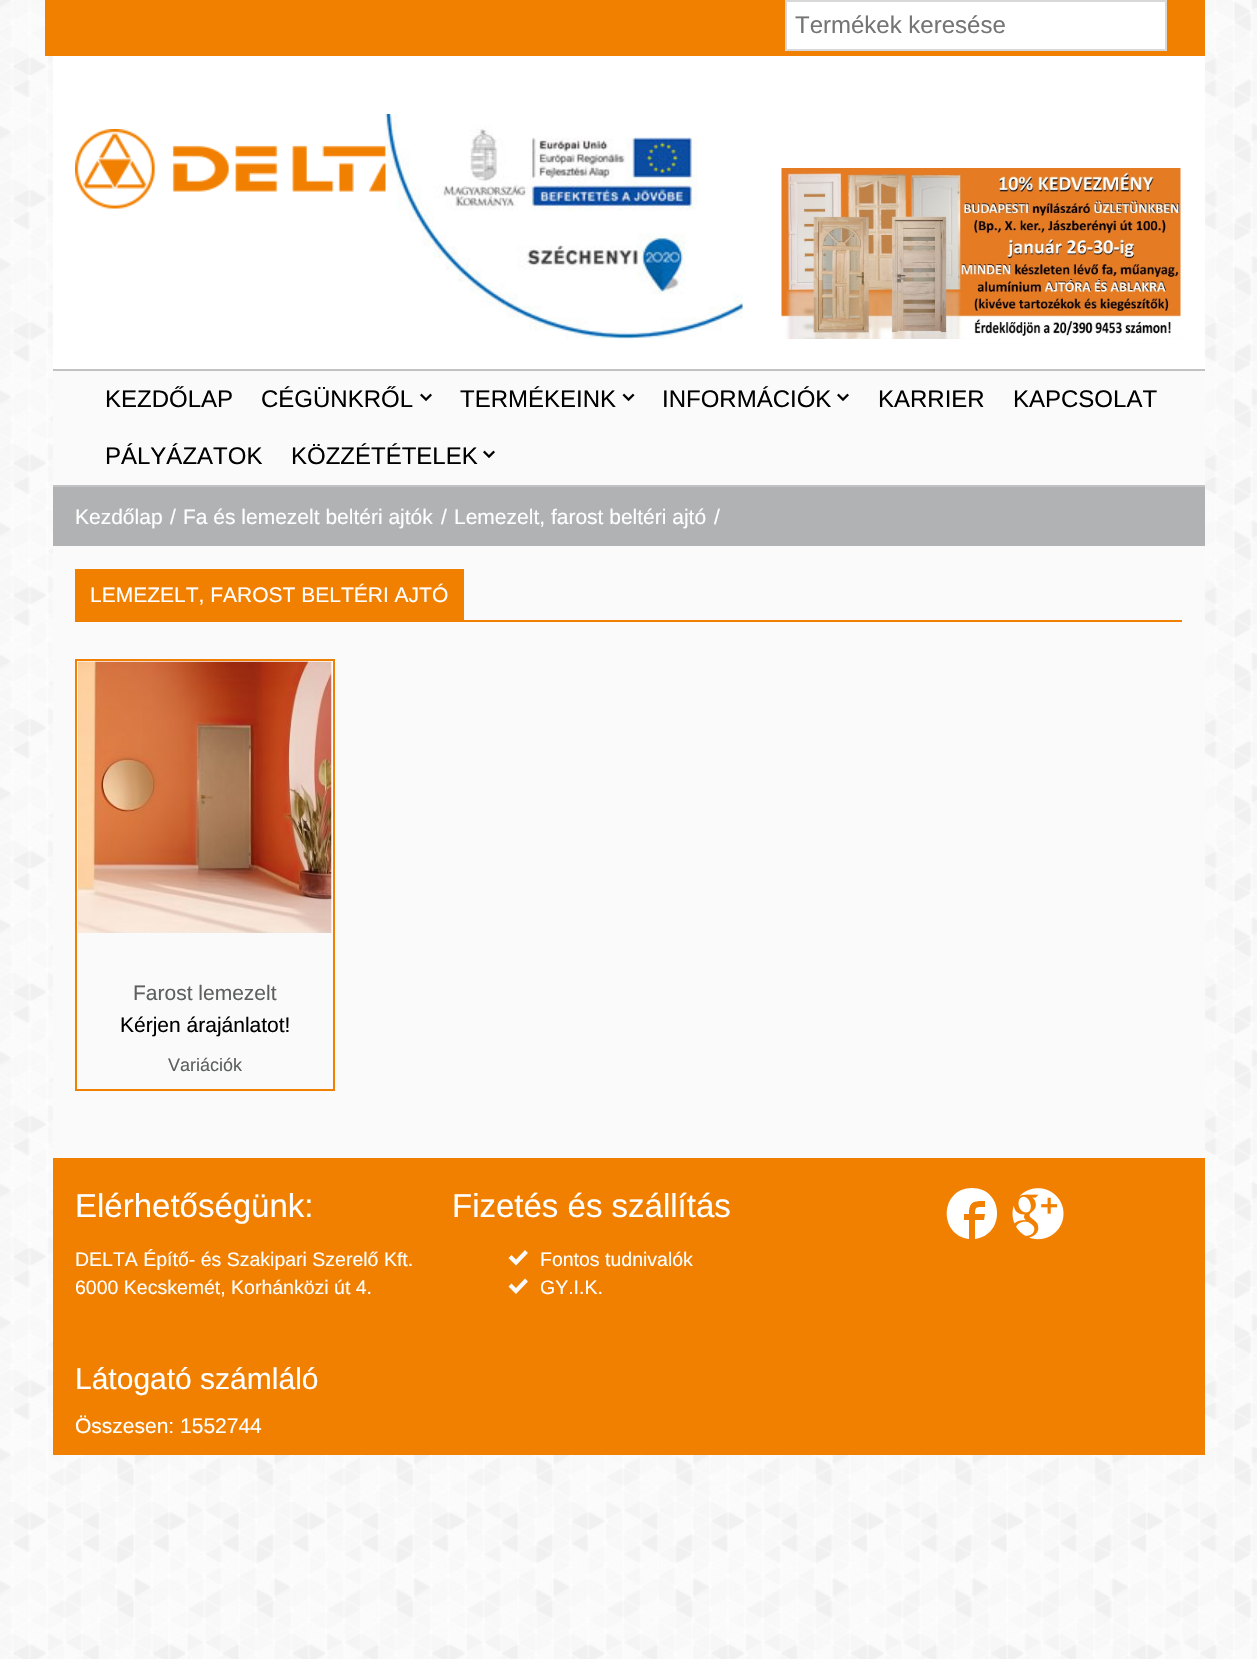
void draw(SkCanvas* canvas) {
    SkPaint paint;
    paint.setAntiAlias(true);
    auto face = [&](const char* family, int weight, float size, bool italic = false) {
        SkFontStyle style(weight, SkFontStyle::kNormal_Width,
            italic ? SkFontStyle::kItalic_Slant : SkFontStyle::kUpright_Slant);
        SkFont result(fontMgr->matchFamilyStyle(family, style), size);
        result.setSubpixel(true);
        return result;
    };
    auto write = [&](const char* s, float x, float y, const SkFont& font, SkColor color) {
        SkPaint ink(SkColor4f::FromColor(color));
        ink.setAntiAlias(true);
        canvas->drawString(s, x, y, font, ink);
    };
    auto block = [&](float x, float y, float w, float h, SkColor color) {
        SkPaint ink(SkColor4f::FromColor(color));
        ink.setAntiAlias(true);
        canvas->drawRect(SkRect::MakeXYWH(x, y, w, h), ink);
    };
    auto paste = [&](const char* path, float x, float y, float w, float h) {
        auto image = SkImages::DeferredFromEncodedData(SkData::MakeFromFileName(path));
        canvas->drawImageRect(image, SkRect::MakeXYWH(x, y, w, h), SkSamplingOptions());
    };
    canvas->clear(SK_ColorWHITE);
    paste("pic1.png", 0, 0, 1257, 1659);
    block(53, 371, 1152, 787, SkColorSetRGB(250, 250, 250));
    block(45, 0, 1160, 56, SkColorSetRGB(242, 128, 0));
    paint.setColor(SK_ColorWHITE);
    canvas->drawRect(SkRect::MakeXYWH(786, 1, 380, 49), paint);
    paint.setStyle(SkPaint::kStroke_Style);
    paint.setStrokeWidth(2);
    paint.setColor(SkColorSetRGB(216, 216, 216));
    canvas->drawRect(SkRect::MakeXYWH(786, 1, 380, 49), paint);
    auto kFont1 = face("Liberation Sans", 400, 24);
    write("Termékek keresése", 795, 33, kFont1, SkColorSetRGB(117, 117, 117));
    block(53, 56, 1152, 313, SK_ColorWHITE);
    paste("pic2.png", 75, 129, 311, 80);
    paste("pic3.png", 385, 114, 358, 225);
    paste("pic4.png", 781, 168, 400, 171);
    block(53, 369, 1152, 2, SkColorSetRGB(193, 194, 196));
    block(53, 485, 1152, 2, SkColorSetRGB(193, 194, 196));
    write("KEZDŐLAP", 105, 407, kFont1, SK_ColorBLACK);
    write("CÉGÜNKRŐL", 261, 407, kFont1, SK_ColorBLACK);
    paste("pic5.png", 420, 393, 12, 9);
    write("TERMÉKEINK", 460, 407, kFont1, SK_ColorBLACK);
    paste("pic6.png", 622, 393, 13, 9);
    write("INFORMÁCIÓK", 662, 407, kFont1, SK_ColorBLACK);
    paste("pic5.png", 837, 393, 12, 9);
    write("KARRIER", 878, 407, kFont1, SK_ColorBLACK);
    write("KAPCSOLAT", 1013, 407, kFont1, SK_ColorBLACK);
    write("PÁLYÁZATOK", 105, 464, kFont1, SK_ColorBLACK);
    write("KÖZZÉTÉTELEK", 291, 464, kFont1, SK_ColorBLACK);
    paste("pic5.png", 483, 450, 12, 9);
    block(53, 487, 1152, 59, SkColorSetRGB(177, 178, 179));
    auto kFont2 = face("Liberation Sans", 400, 21);
    write("Kezdőlap", 75, 524, kFont2, SK_ColorWHITE);
    write("/", 170, 524, kFont2, SK_ColorWHITE);
    write("Fa és lemezelt beltéri ajtók", 183, 524, kFont2, SK_ColorWHITE);
    write("/", 441, 524, kFont2, SK_ColorWHITE);
    write("Lemezelt, farost beltéri ajtó", 454, 524, kFont2, SK_ColorWHITE);
    write("/", 714, 524, kFont2, SK_ColorWHITE);
    block(75, 620, 1107, 2, SkColorSetRGB(242, 128, 0));
    block(75, 569, 389, 51, SkColorSetRGB(242, 128, 0));
    write("LEMEZELT, FAROST BELTÉRI AJTÓ", 90, 602, kFont2, SK_ColorWHITE);
    paint.setColor(SkColorSetRGB(242, 128, 0));
    canvas->drawRect(SkRect::MakeXYWH(76, 660, 258, 430), paint);
    paste("pic7.png", 78, 661, 254, 272);
    write("Farost lemezelt", 133, 1000, kFont2, SkColorSetRGB(94, 96, 95));
    write("Kérjen árajánlatot!", 120, 1032, kFont2, SK_ColorBLACK);
    auto kFont3 = face("Liberation Sans", 400, 18);
    write("Variációk", 168, 1071, kFont3, SkColorSetRGB(94, 96, 95));
    block(53, 1158, 1152, 297, SkColorSetRGB(242, 128, 0));
    auto kFont4 = face("Liberation Sans", 400, 33);
    write("Elérhetőségünk:", 75, 1217, kFont4, SK_ColorWHITE);
    auto kFont5 = face("Liberation Sans", 400, 19.5f);
    write("DELTA Építő- és Szakipari Szerelő Kft.", 75, 1266, kFont5, SK_ColorWHITE);
    write("6000 Kecskemét, Korhánközi út 4.", 75, 1294, kFont5, SK_ColorWHITE);
    auto kFont6 = face("Liberation Sans", 400, 30);
    write("Látogató számláló", 75, 1389, kFont6, SK_ColorWHITE);
    write("Összesen: 1552744", 75, 1433, kFont2, SK_ColorWHITE);
    write("Fizetés és szállítás", 452, 1217, kFont4, SK_ColorWHITE);
    paint.setStyle(SkPaint::kFill_Style);
    paint.setColor(SkColorSetRGB(250, 250, 250));
    canvas->drawPath(SkPathBuilder().moveTo(525, 1250).lineTo(516, 1259.5f).lineTo(511.5f, 1255).lineTo(508.5f, 1258).lineTo(516, 1265.5f).lineTo(528, 1253).close().moveTo(525, 1278.5f).lineTo(516, 1288).lineTo(511.5f, 1283.5f).lineTo(508.5f, 1286.5f).lineTo(516, 1294).lineTo(528, 1281.5f).close().detach(), paint);
    write("Fontos tudnivalók", 540, 1266, kFont5, SK_ColorWHITE);
    write("GY.I.K.", 540, 1294, kFont5, SK_ColorWHITE);
    paint.setColor(SK_ColorWHITE);
    canvas->drawPath(SkPathBuilder().moveTo(972, 1188).cubicTo(1004, 1188, 1006, 1235, 975, 1239).lineTo(975, 1220).lineTo(984, 1220).lineTo(985, 1214).lineTo(975, 1214).cubicTo(975, 1206, 977, 1207, 985, 1207).lineTo(985, 1201).cubicTo(974, 1201, 969, 1201, 969, 1214).lineTo(964, 1214).lineTo(964, 1220).lineTo(969, 1220).lineTo(969, 1239).cubicTo(938, 1235, 940, 1188, 972, 1188).close().detach(), paint);
    paste("pic8.png", 1012, 1188, 52, 52);
}
